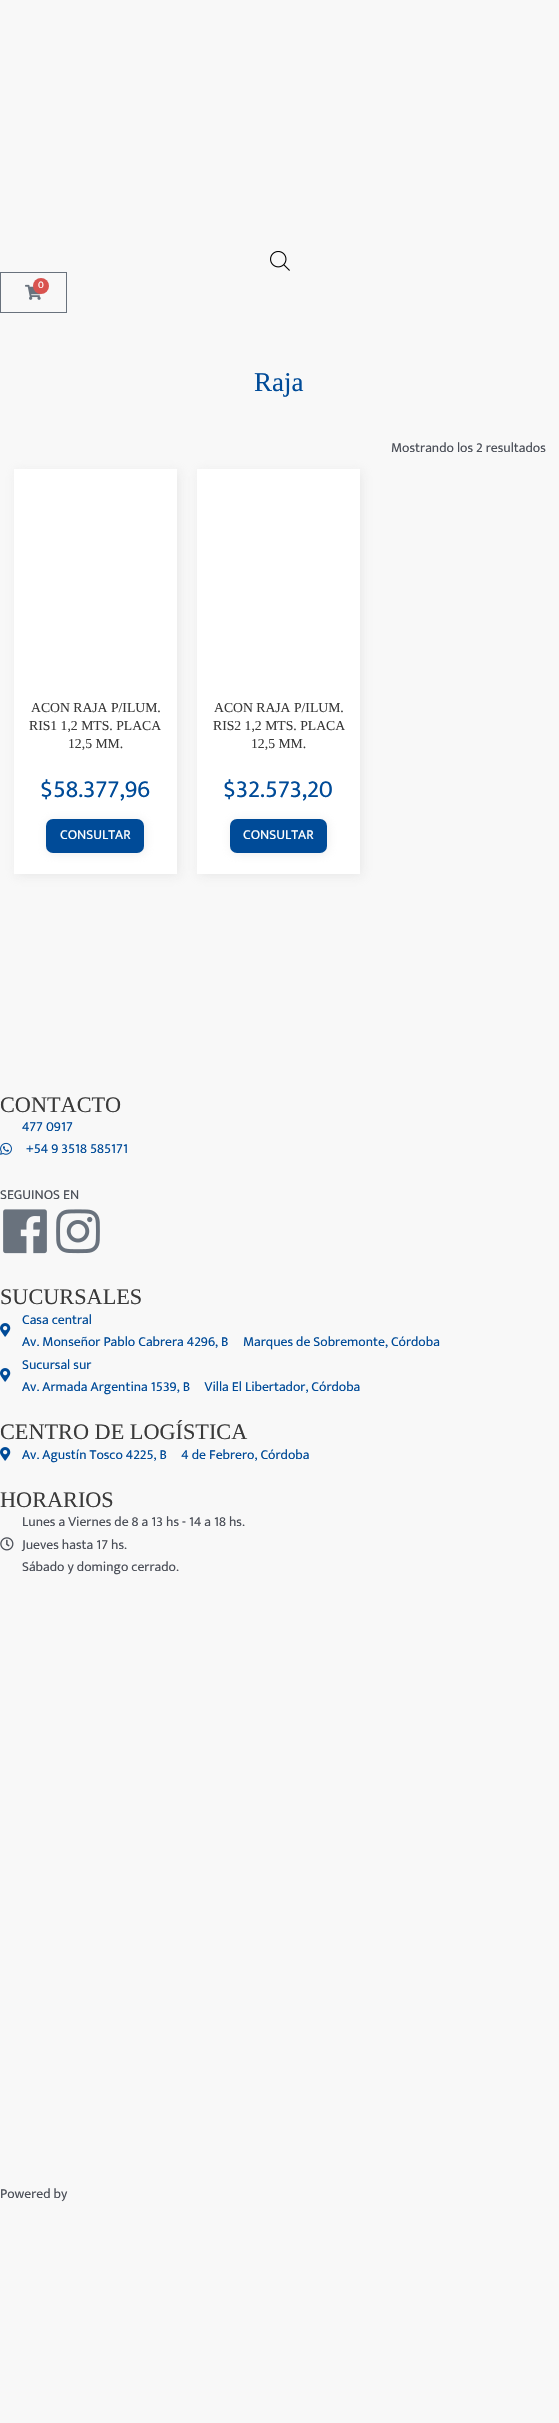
void draw(SkCanvas* canvas) {
    SkPaint paint;
    paint.setAntiAlias(true);
    auto face = [&](const char* family, int weight, float size, bool italic = false) {
        SkFontStyle style(weight, SkFontStyle::kNormal_Width,
            italic ? SkFontStyle::kItalic_Slant : SkFontStyle::kUpright_Slant);
        SkFont result(fontMgr->matchFamilyStyle(family, style), size);
        result.setSubpixel(true);
        return result;
    };
    auto write = [&](const char* s, float x, float y, const SkFont& font, SkColor color) {
        SkPaint ink(SkColor4f::FromColor(color));
        ink.setAntiAlias(true);
        canvas->drawString(s, x, y, font, ink);
    };
    auto block = [&](float x, float y, float w, float h, SkColor color) {
        SkPaint ink(SkColor4f::FromColor(color));
        ink.setAntiAlias(true);
        canvas->drawRect(SkRect::MakeXYWH(x, y, w, h), ink);
    };
    auto card = [&](float x, float y, float w, float h, float radius, SkColor color) {
        SkPaint ink(SkColor4f::FromColor(color));
        ink.setAntiAlias(true);
        canvas->drawRoundRect(SkRect::MakeXYWH(x, y, w, h), radius, radius, ink);
    };
    auto paste = [&](const char* path, float x, float y, float w, float h) {
        auto image = SkImages::DeferredFromEncodedData(SkData::MakeFromFileName(path));
        canvas->drawImageRect(image, SkRect::MakeXYWH(x, y, w, h), SkSamplingOptions());
    };
    canvas->clear(SkColorSetRGB(248, 248, 248));
    paste("pic1.png", 270, 251, 20, 20);
    paint.setStyle(SkPaint::kStroke_Style);
    paint.setStrokeWidth(1);
    paint.setColor(SkColorSetRGB(105, 114, 125));
    canvas->drawRect(SkRect::MakeXYWH(0.5f, 272.5f, 66, 40), paint);
    paste("pic2.png", 25, 284, 16, 16);
    paint.setStyle(SkPaint::kFill_Style);
    paint.setColor(SkColorSetRGB(217, 83, 79));
    canvas->drawCircle(41, 286, 8, paint);
    auto kFont1 = face("Mukta", 400, 10);
    write("0", 38, 288, kFont1, SK_ColorWHITE);
    auto kFont2 = face("Liberation Serif", 400, 27);
    write("Raja", 254, 391, kFont2, SkColorSetRGB(0, 75, 152));
    auto kFont3 = face("Mukta", 400, 13.7f);
    write("Mostrando los 2 resultados", 391, 452, kFont3, SkColorSetRGB(75, 79, 88));
    paint.setColor(SkColorSetARGB(82, 200, 200, 200));
    paint.setMaskFilter(SkMaskFilter::MakeBlur(kNormal_SkBlurStyle, 5));
    canvas->drawRect(SkRect::MakeXYWH(16, 471, 163, 405), paint);
    paint.setMaskFilter(nullptr);
    block(14, 469, 163, 405, SK_ColorWHITE);
    auto kFont4 = face("Liberation Serif", 400, 13.7f);
    write("ACON RAJA P/ILUM.", 31, 712, kFont4, SkColorSetRGB(58, 58, 58));
    write("RIS1 1,2 MTS. PLACA", 29, 730, kFont4, SkColorSetRGB(58, 58, 58));
    write("12,5 MM.", 68, 748, kFont4, SkColorSetRGB(58, 58, 58));
    auto kFont5 = face("Mukta", 400, 24.5f);
    write("$58.377,96", 40, 797, kFont5, SkColorSetRGB(0, 75, 152));
    paint.setMaskFilter(SkMaskFilter::MakeBlur(kNormal_SkBlurStyle, 5));
    canvas->drawRoundRect(SkRect::MakeXYWH(47, 820, 98, 34), 7, 7, paint);
    paint.setMaskFilter(nullptr);
    card(46, 819, 98, 34, 7, SkColorSetRGB(0, 75, 152));
    write("CONSULTAR", 60, 839, kFont3, SK_ColorWHITE);
    paint.setMaskFilter(SkMaskFilter::MakeBlur(kNormal_SkBlurStyle, 5));
    canvas->drawRect(SkRect::MakeXYWH(199, 471, 163, 405), paint);
    paint.setMaskFilter(nullptr);
    block(197, 469, 163, 405, SK_ColorWHITE);
    write("ACON RAJA P/ILUM.", 214, 712, kFont4, SkColorSetRGB(58, 58, 58));
    write("RIS2 1,2 MTS. PLACA", 213, 730, kFont4, SkColorSetRGB(58, 58, 58));
    write("12,5 MM.", 251, 748, kFont4, SkColorSetRGB(58, 58, 58));
    write("$32.573,20", 223, 797, kFont5, SkColorSetRGB(0, 75, 152));
    paint.setMaskFilter(SkMaskFilter::MakeBlur(kNormal_SkBlurStyle, 5));
    canvas->drawRoundRect(SkRect::MakeXYWH(231, 820, 97, 34), 7, 7, paint);
    paint.setMaskFilter(nullptr);
    card(230, 819, 97, 34, 7, SkColorSetRGB(0, 75, 152));
    write("CONSULTAR", 243, 839, kFont3, SK_ColorWHITE);
    auto kFont6 = face("Liberation Serif", 400, 22.25f);
    write("CONTACTO", 0, 1112, kFont6, SkColorSetRGB(58, 58, 58));
    write("477 0917", 22, 1131, kFont3, SkColorSetRGB(0, 75, 152));
    paste("pic3.png", 0, 1142, 12, 13);
    write("+54 9 3518 585171", 26, 1153, kFont3, SkColorSetRGB(0, 75, 152));
    write("SEGUINOS EN", 0, 1199, kFont3, SkColorSetRGB(75, 79, 88));
    paste("pic4.png", 3, 1209, 44, 45);
    paste("pic5.png", 56, 1209, 44, 45);
    write("SUCURSALES", 0, 1304, kFont6, SkColorSetRGB(58, 58, 58));
    paste("pic6.png", 0, 1323, 11, 14);
    write("Casa central", 22, 1324, kFont3, SkColorSetRGB(0, 75, 152));
    write("Av. Monseñor Pablo Cabrera 4296, Bº Marques de Sobremonte, Córdoba", 22, 1346, kFont3, SkColorSetRGB(0, 75, 152));
    paste("pic6.png", 0, 1368, 11, 14);
    write("Sucursal sur", 22, 1369, kFont3, SkColorSetRGB(0, 75, 152));
    write("Av. Armada Argentina 1539, Bº Villa El Libertador, Córdoba", 22, 1391, kFont3, SkColorSetRGB(0, 75, 152));
    write("CENTRO DE LOGÍSTICA", 0, 1439, kFont6, SkColorSetRGB(58, 58, 58));
    paste("pic6.png", 0, 1447, 11, 14);
    write("Av. Agustín Tosco 4225, Bº 4 de Febrero, Córdoba", 22, 1459, kFont3, SkColorSetRGB(0, 75, 152));
    write("HORARIOS", 0, 1507, kFont6, SkColorSetRGB(58, 58, 58));
    paste("pic7.png", 0, 1537, 14, 14);
    write("Lunes a Viernes de 8 a 13 hs - 14 a 18 hs.", 22, 1526, kFont3, SkColorSetRGB(75, 79, 88));
    write("Jueves hasta 17 hs.", 22, 1549, kFont3, SkColorSetRGB(75, 79, 88));
    write("Sábado y domingo cerrado.", 22, 1571, kFont3, SkColorSetRGB(75, 79, 88));
    write("Powered by", 0, 2198, kFont3, SkColorSetRGB(75, 79, 88));
}
